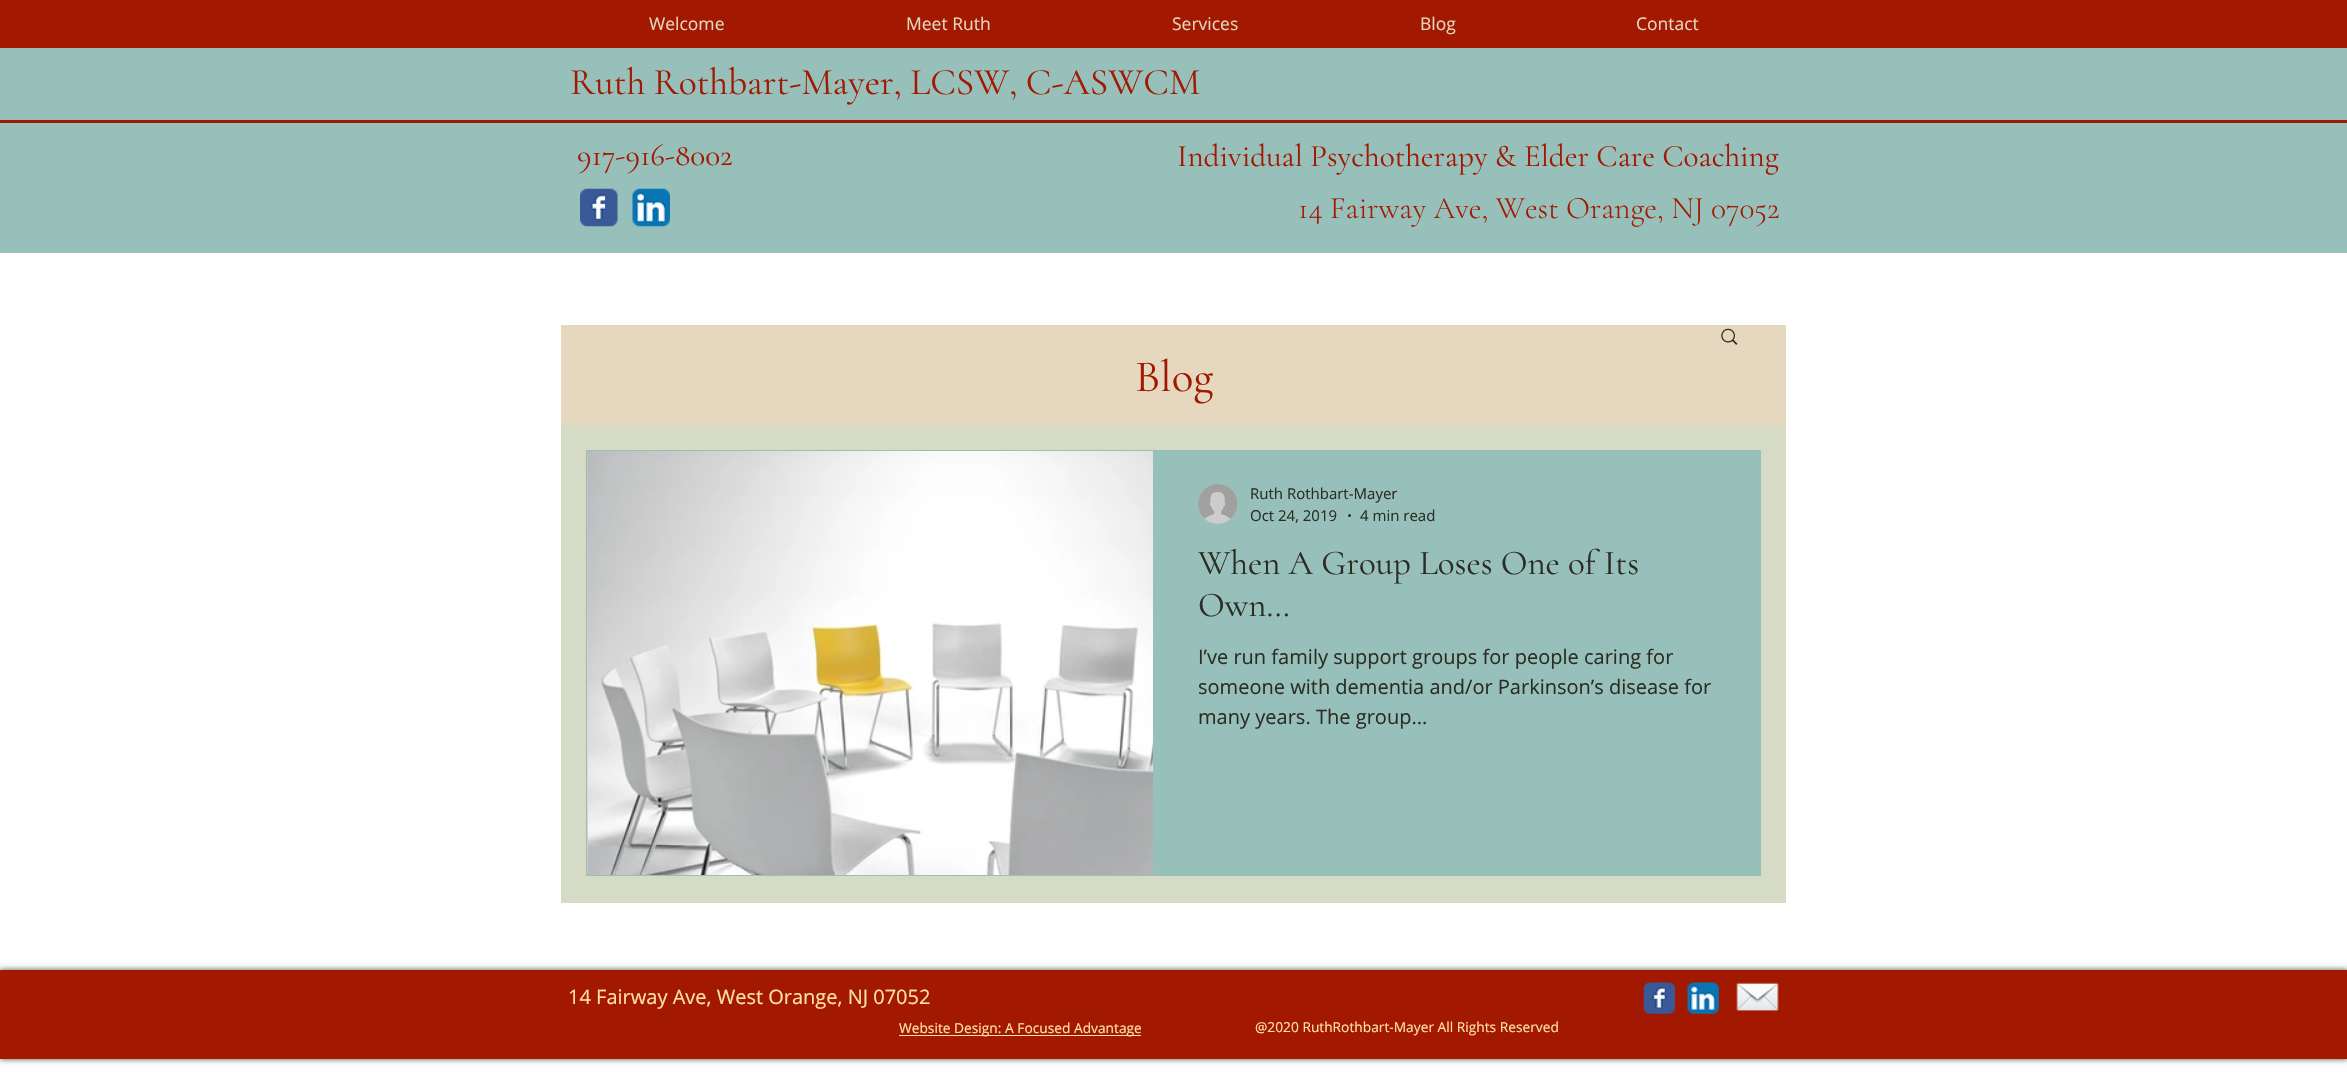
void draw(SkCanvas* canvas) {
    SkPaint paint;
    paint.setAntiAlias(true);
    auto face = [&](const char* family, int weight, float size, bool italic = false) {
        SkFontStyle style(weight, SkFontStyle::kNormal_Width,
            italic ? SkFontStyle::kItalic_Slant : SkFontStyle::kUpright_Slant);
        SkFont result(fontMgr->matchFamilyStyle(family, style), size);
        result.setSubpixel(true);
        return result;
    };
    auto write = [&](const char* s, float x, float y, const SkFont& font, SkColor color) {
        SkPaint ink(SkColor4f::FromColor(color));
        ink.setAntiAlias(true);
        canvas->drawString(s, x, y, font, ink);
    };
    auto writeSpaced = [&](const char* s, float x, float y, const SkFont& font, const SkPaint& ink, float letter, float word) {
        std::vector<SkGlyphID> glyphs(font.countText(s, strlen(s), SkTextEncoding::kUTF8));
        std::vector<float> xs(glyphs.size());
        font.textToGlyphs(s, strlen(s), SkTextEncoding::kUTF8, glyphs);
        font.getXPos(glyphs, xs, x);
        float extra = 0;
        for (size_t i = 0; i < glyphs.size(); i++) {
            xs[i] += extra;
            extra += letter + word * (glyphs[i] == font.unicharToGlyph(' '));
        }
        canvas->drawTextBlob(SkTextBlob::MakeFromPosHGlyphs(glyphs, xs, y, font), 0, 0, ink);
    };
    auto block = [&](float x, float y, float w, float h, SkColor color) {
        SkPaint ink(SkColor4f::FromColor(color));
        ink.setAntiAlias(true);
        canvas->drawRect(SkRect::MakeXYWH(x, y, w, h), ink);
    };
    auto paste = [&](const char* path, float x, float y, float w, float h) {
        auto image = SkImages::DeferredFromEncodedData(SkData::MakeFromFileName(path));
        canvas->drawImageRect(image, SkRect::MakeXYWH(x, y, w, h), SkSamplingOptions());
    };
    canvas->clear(SK_ColorWHITE);
    block(0, 0, 2347, 48, SkColorSetRGB(162, 24, 0));
    auto kFont1 = face("Open Sans", 400, 17.5f);
    write("Welcome", 649, 30, kFont1, SkColorSetRGB(229, 216, 190));
    write("Meet Ruth", 906, 30, kFont1, SkColorSetRGB(229, 216, 190));
    write("Services", 1172, 30, kFont1, SkColorSetRGB(229, 216, 190));
    write("Blog", 1420, 30, kFont1, SkColorSetRGB(229, 216, 190));
    write("Contact", 1636, 30, kFont1, SkColorSetRGB(229, 216, 190));
    block(0, 48, 2347, 205, SkColorSetRGB(151, 192, 186));
    auto kFont2 = face("Cormorant Garamond", 400, 37.5f);
    paint.setColor(SkColorSetRGB(162, 24, 0));
    writeSpaced("Ruth Rothbart-Mayer, LCSW, C-ASWCM", 570, 94, kFont2, paint, 0, -0.5f);
    block(0, 120, 2347, 3, SkColorSetRGB(162, 24, 0));
    auto kFont3 = face("Cormorant Garamond", 400, 31.25f);
    write("917-916-8002", 577, 165, kFont3, SkColorSetRGB(162, 24, 0));
    write("Individual Psychotherapy & Elder Care Coaching", 1177, 166, kFont3, SkColorSetRGB(162, 24, 0));
    paste("pic1.png", 580, 188, 38, 39);
    paste("pic2.png", 632, 188, 38, 39);
    auto kFont4 = face("Cormorant Garamond", 300, 31.25f);
    write("14 Fairway Ave, West Orange, NJ 07052", 1298, 218, kFont4, SkColorSetRGB(162, 24, 0));
    block(561, 325, 1225, 100, SkColorSetRGB(229, 216, 190));
    auto kFont5 = face("Cormorant Garamond", 400, 45);
    write("Blog", 1135, 391, kFont5, SkColorSetRGB(162, 24, 0));
    block(561, 425, 1225, 478, SkColorSetRGB(214, 219, 197));
    paste("pic3.png", 1721, 328, 17, 17);
    paint.setStyle(SkPaint::kStroke_Style);
    paint.setStrokeWidth(1);
    paint.setColor(SkColorSetRGB(151, 192, 186));
    canvas->drawRect(SkRect::MakeXYWH(586.5f, 450.5f, 1174, 425), paint);
    paste("pic4.png", 587, 451, 1, 424);
    paste("pic5.png", 588, 451, 565, 424);
    block(1153, 451, 607, 424, SkColorSetRGB(151, 192, 186));
    paste("pic6.png", 1198, 484, 40, 40);
    auto kFont6 = face("Open Sans", 400, 15);
    write("Ruth Rothbart-Mayer", 1250, 499, kFont6, SkColorSetRGB(43, 45, 36));
    write("Oct 24, 2019", 1250, 521, kFont6, SkColorSetRGB(43, 45, 36));
    paint.setStyle(SkPaint::kFill_Style);
    paint.setColor(SkColorSetRGB(43, 45, 36));
    canvas->drawCircle(1349.5f, 515.5f, 1.5f, paint);
    write("4 min read", 1360, 521, kFont6, SkColorSetRGB(43, 45, 36));
    auto kFont7 = face("Cormorant Garamond", 400, 35);
    write("When A Group Loses One of Its", 1198, 574, kFont7, SkColorSetRGB(43, 45, 36));
    write("Own…", 1198, 616, kFont7, SkColorSetRGB(43, 45, 36));
    auto kFont8 = face("Open Sans", 400, 20);
    write("I’ve run family support groups for people caring for", 1198, 664, kFont8, SkColorSetRGB(43, 45, 36));
    write("someone with dementia and/or Parkinson’s disease for", 1198, 694, kFont8, SkColorSetRGB(43, 45, 36));
    write("many years. The group...", 1198, 724, kFont8, SkColorSetRGB(43, 45, 36));
    paint.setColor(SkColorSetARGB(179, 0, 0, 0));
    paint.setMaskFilter(SkMaskFilter::MakeBlur(kNormal_SkBlurStyle, 3));
    canvas->drawRect(SkRect::MakeXYWH(0, 970, 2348, 89), paint);
    paint.setMaskFilter(nullptr);
    block(0, 970, 2347, 89, SkColorSetRGB(162, 24, 0));
    write("14 Fairway Ave, West Orange, NJ 07052", 568, 1004, kFont8, SkColorSetRGB(255, 226, 165));
    paste("pic7.png", 1643, 982, 32, 32);
    paste("pic8.png", 1687, 982, 32, 32);
    paste("pic9.png", 1736, 982, 43, 29);
    block(899, 1035, 242, 1, SkColorSetRGB(255, 226, 165));
    auto kFont9 = face("Open Sans", 400, 13.75f);
    write("Website Design: A Focused Advantage", 899, 1033, kFont9, SkColorSetRGB(255, 226, 165));
    write("@2020 RuthRothbart-Mayer All Rights Reserved", 1255, 1032, kFont9, SkColorSetRGB(255, 226, 165));
}
